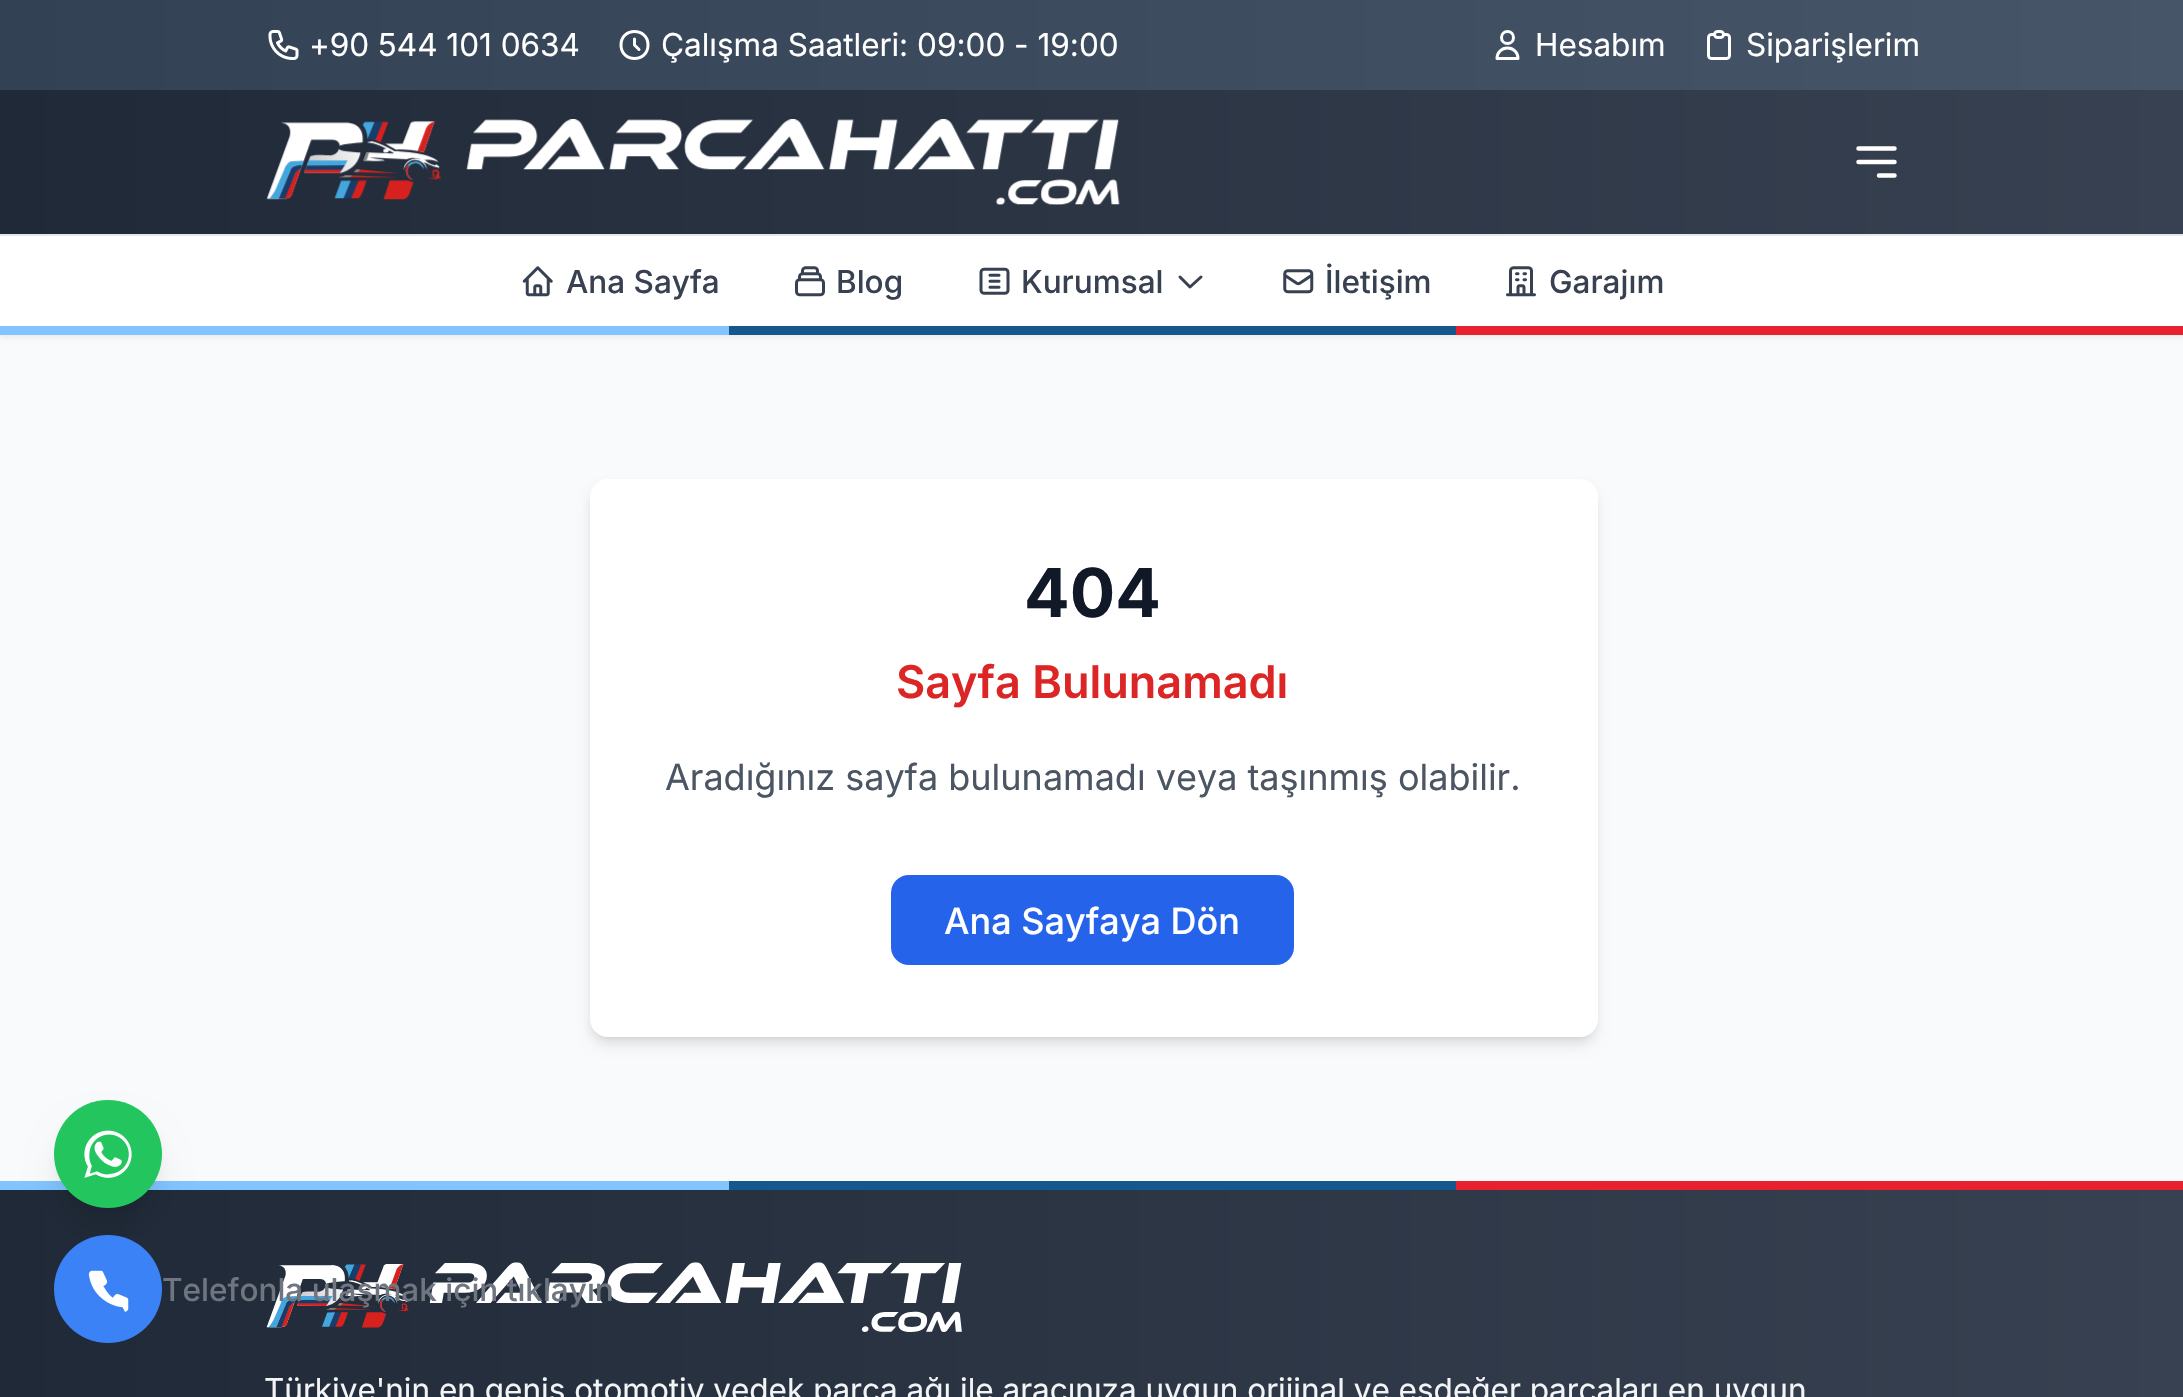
void draw(SkCanvas* canvas) {
    SkPaint paint;
    paint.setAntiAlias(true);
    auto face = [&](const char* family, int weight, float size, bool italic = false) {
        SkFontStyle style(weight, SkFontStyle::kNormal_Width,
            italic ? SkFontStyle::kItalic_Slant : SkFontStyle::kUpright_Slant);
        SkFont result(fontMgr->matchFamilyStyle(family, style), size);
        result.setSubpixel(true);
        return result;
    };
    auto write = [&](const char* s, float x, float y, const SkFont& font, SkColor color) {
        SkPaint ink(SkColor4f::FromColor(color));
        ink.setAntiAlias(true);
        canvas->drawString(s, x, y, font, ink);
    };
    auto block = [&](float x, float y, float w, float h, SkColor color) {
        SkPaint ink(SkColor4f::FromColor(color));
        ink.setAntiAlias(true);
        canvas->drawRect(SkRect::MakeXYWH(x, y, w, h), ink);
    };
    auto card = [&](float x, float y, float w, float h, float radius, SkColor color) {
        SkPaint ink(SkColor4f::FromColor(color));
        ink.setAntiAlias(true);
        canvas->drawRoundRect(SkRect::MakeXYWH(x, y, w, h), radius, radius, ink);
    };
    auto paste = [&](const char* path, float x, float y, float w, float h) {
        auto image = SkImages::DeferredFromEncodedData(SkData::MakeFromFileName(path));
        canvas->drawImageRect(image, SkRect::MakeXYWH(x, y, w, h), SkSamplingOptions());
    };
    canvas->clear(SkColorSetRGB(249, 250, 251));
    paint.setColor(SkColorSetARGB(13, 0, 0, 0));
    paint.setMaskFilter(SkMaskFilter::MakeBlur(kNormal_SkBlurStyle, 2));
    canvas->drawRect(SkRect::MakeXYWH(0, 2, 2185, 336), paint);
    paint.setMaskFilter(nullptr);
    {
        const SkColor colors[] = {SkColorSetRGB(31, 41, 55), SkColorSetRGB(55, 65, 81)};
        const float stops[] = {0, 1};
        const SkPoint ends[] = {{0, 168}, {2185, 168}};
        paint.setShader(SkGradientShader::MakeLinear(ends, colors, stops, 2, SkTileMode::kClamp));
        paint.setAlpha(255);
    }
    canvas->drawRect(SkRect::MakeXYWH(0, 90, 2183, 144), paint);
    {
        const SkColor colors[] = {SkColorSetRGB(51, 65, 85), SkColorSetRGB(71, 85, 105)};
        const float stops[] = {0, 1};
        const SkPoint ends[] = {{0, 45}, {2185, 45}};
        paint.setShader(SkGradientShader::MakeLinear(ends, colors, stops, 2, SkTileMode::kClamp));
        paint.setAlpha(255);
    }
    canvas->drawRect(SkRect::MakeXYWH(0, 0, 2183, 90), paint);
    paste("pic1.png", 268, 30, 31, 30);
    auto kFont1 = face("Inter", 400, 31.5f);
    write("+90 544 101 0634", 309, 56, kFont1, SK_ColorWHITE);
    paint.setStyle(SkPaint::kStroke_Style);
    paint.setStrokeWidth(3);
    paint.setStrokeCap(SkPaint::kRound_Cap);
    paint.setStrokeJoin(SkPaint::kRound_Join);
    paint.setShader(nullptr);
    paint.setColor(SK_ColorWHITE);
    canvas->drawPath(SkPathBuilder().moveTo(634.5f, 39).lineTo(634.5f, 45).lineTo(639, 49.5f).moveTo(648, 45).cubicTo(648, 63, 621, 63, 621, 45).cubicTo(621, 27, 648, 27, 648, 45).close().detach(), paint);
    write("Çalışma Saatleri: 09:00 - 19:00", 661, 56, kFont1, SK_ColorWHITE);
    canvas->drawPath(SkPathBuilder().moveTo(1513.5f, 37.5f).cubicTo(1513.5f, 45.5f, 1501.5f, 45.5f, 1501.5f, 37.5f).cubicTo(1501.5f, 29.5f, 1513.5f, 29.5f, 1513.5f, 37.5f).close().moveTo(1507.5f, 48).cubicTo(1501.5f, 48, 1497, 52.5f, 1497, 58.5f).lineTo(1518, 58.5f).cubicTo(1518, 52.5f, 1513.5f, 48, 1507.5f, 48).close().detach(), paint);
    write("Hesabım", 1535, 56, kFont1, SK_ColorWHITE);
    paste("pic2.png", 1707, 30, 24, 30);
    write("Siparişlerim", 1746, 56, kFont1, SK_ColorWHITE);
    paste("pic3.png", 266, 119, 854, 86);
    paint.setStrokeWidth(4.5f);
    canvas->drawPath(SkPathBuilder().moveTo(1858.5f, 148.5f).lineTo(1894.5f, 148.5f).moveTo(1858.5f, 162).lineTo(1894.5f, 162).moveTo(1879, 175.5f).lineTo(1894.5f, 175.5f).detach(), paint);
    block(0, 236, 2183, 90, SK_ColorWHITE);
    block(0, 234, 2183, 2, SkColorSetRGB(229, 231, 235));
    paste("pic4.png", 522, 266, 31, 31);
    auto kFont2 = face("Inter", 500, 31.5f);
    write("Ana Sayfa", 566, 293, kFont2, SkColorSetRGB(55, 65, 81));
    paste("pic5.png", 795, 266, 30, 31);
    write("Blog", 836, 293, kFont2, SkColorSetRGB(55, 65, 81));
    paste("pic6.png", 979, 267, 31, 28);
    write("Kurumsal", 1021, 293, kFont2, SkColorSetRGB(55, 65, 81));
    paint.setStrokeWidth(3);
    paint.setColor(SkColorSetRGB(55, 65, 81));
    canvas->drawPath(SkPathBuilder().moveTo(1201, 277).lineTo(1190, 287).lineTo(1180, 277).detach(), paint);
    paste("pic7.png", 1283, 269, 31, 25);
    write("İletişim", 1325, 293, kFont2, SkColorSetRGB(55, 65, 81));
    paste("pic8.png", 1506, 266, 30, 31);
    write("Garajım", 1549, 293, kFont2, SkColorSetRGB(55, 65, 81));
    block(0, 326, 729, 9, SkColorSetRGB(129, 196, 255));
    block(729, 326, 727, 9, SkColorSetRGB(22, 88, 142));
    block(1456, 326, 727, 9, SkColorSetRGB(231, 34, 46));
    paint.setStyle(SkPaint::kFill_Style);
    paint.setColor(SkColorSetARGB(26, 0, 0, 0));
    paint.setMaskFilter(SkMaskFilter::MakeBlur(kNormal_SkBlurStyle, 4.5f));
    canvas->drawRoundRect(SkRect::MakeXYWH(594, 488, 999, 549), 14, 14, paint);
    paint.setMaskFilter(nullptr);
    paint.setMaskFilter(SkMaskFilter::MakeBlur(kNormal_SkBlurStyle, 7));
    canvas->drawRoundRect(SkRect::MakeXYWH(592, 491, 1003, 553), 16, 16, paint);
    paint.setMaskFilter(nullptr);
    card(590, 479, 1008, 558, 18, SK_ColorWHITE);
    auto kFont3 = face("Inter", 700, 67.5f);
    write("404", 1024, 617, kFont3, SkColorSetRGB(17, 24, 39));
    auto kFont4 = face("Inter", 600, 45);
    write("Sayfa Bulunamadı", 896, 698, kFont4, SkColorSetRGB(220, 38, 38));
    auto kFont5 = face("Inter", 400, 36);
    write("Aradığınız sayfa bulunamadı veya taşınmış olabilir.", 665, 790, kFont5, SkColorSetRGB(75, 85, 99));
    card(891, 875, 403, 90, 18, SkColorSetRGB(37, 99, 235));
    auto kFont6 = face("Inter", 500, 36);
    write("Ana Sayfaya Dön", 944, 934, kFont6, SK_ColorWHITE);
    {
        const SkColor colors[] = {SkColorSetRGB(31, 41, 55), SkColorSetRGB(55, 65, 81)};
        const float stops[] = {0, 1};
        const SkPoint ends[] = {{0, 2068}, {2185, 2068}};
        paint.setShader(SkGradientShader::MakeLinear(ends, colors, stops, 2, SkTileMode::kClamp));
        paint.setAlpha(255);
    }
    canvas->drawRect(SkRect::MakeXYWH(0, 1190, 2183, 207), paint);
    block(0, 1181, 729, 9, SkColorSetRGB(129, 196, 255));
    paint.setShader(nullptr);
    paint.setColor(SkColorSetARGB(26, 0, 0, 0));
    paint.setMaskFilter(SkMaskFilter::MakeBlur(kNormal_SkBlurStyle, 7));
    canvas->drawRoundRect(SkRect::MakeXYWH(63, 1118, 90, 90), 45, 45, paint);
    paint.setMaskFilter(nullptr);
    paint.setMaskFilter(SkMaskFilter::MakeBlur(kNormal_SkBlurStyle, 17));
    canvas->drawRoundRect(SkRect::MakeXYWH(61, 1130, 94, 94), 47, 47, paint);
    paint.setMaskFilter(nullptr);
    paint.setColor(SkColorSetRGB(34, 197, 94));
    canvas->drawCircle(108, 1154, 54, paint);
    paste("pic9.png", 84, 1130, 48, 48);
    paint.setColor(SkColorSetRGB(59, 130, 246));
    canvas->drawCircle(108, 1289, 54, paint);
    paste("pic10.png", 88, 1270, 41, 42);
    paste("pic11.png", 266, 1262, 696, 70);
    write("Telefonla ulaşmak için tıklayın", 162, 1301, kFont2, SkColorSetRGB(111, 118, 128));
    block(729, 1181, 727, 9, SkColorSetRGB(22, 88, 142));
    block(1456, 1181, 727, 9, SkColorSetRGB(231, 34, 46));
    write("Türkiye'nin en geniş otomotiv yedek parça ağı ile aracınıza uygun orijinal ve eşdeğer parçaları en uygun", 264, 1401, kFont1, SkColorSetRGB(243, 244, 246));
}
